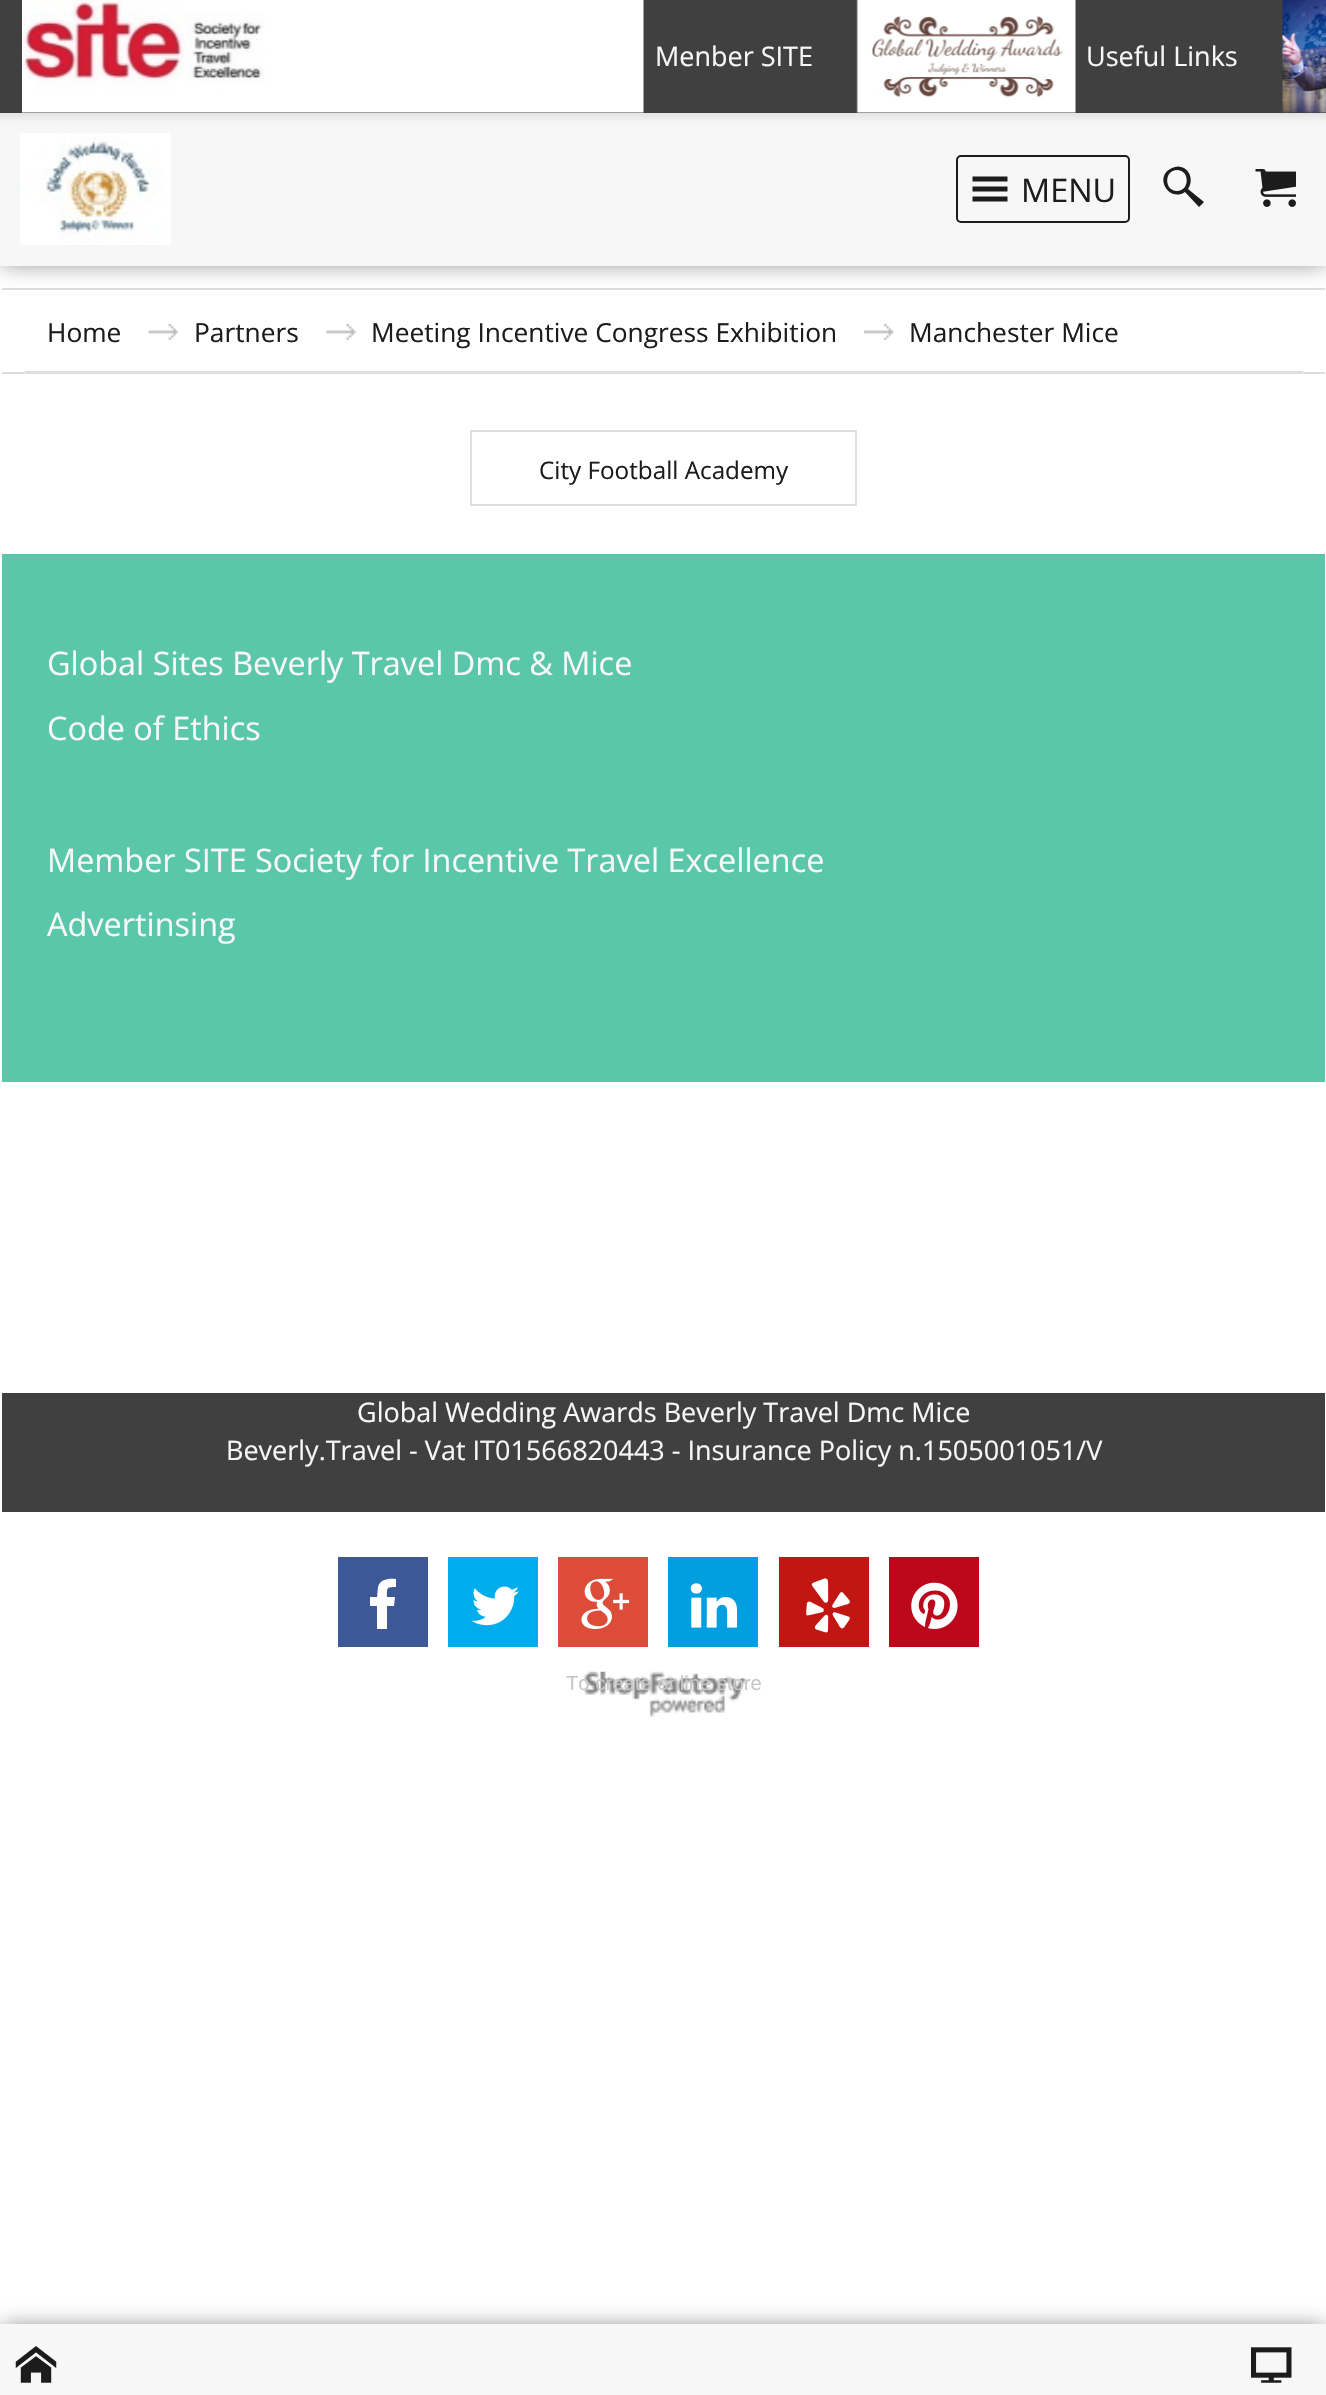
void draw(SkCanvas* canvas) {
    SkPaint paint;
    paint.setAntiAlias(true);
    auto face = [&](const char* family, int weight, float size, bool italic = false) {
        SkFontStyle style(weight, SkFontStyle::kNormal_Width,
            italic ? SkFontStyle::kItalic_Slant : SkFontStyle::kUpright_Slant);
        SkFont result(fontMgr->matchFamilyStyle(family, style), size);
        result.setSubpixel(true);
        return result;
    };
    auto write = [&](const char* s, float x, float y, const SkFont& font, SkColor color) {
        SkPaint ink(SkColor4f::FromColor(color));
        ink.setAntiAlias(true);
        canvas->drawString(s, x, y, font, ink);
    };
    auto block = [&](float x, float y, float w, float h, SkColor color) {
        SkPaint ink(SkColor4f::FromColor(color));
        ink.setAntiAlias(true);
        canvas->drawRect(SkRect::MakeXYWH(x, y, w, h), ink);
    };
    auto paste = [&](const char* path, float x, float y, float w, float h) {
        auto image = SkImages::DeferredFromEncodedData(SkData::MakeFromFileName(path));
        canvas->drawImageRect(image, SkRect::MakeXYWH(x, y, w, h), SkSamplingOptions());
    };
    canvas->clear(SK_ColorWHITE);
    block(25, 371, 1278, 1, SkColorSetRGB(222, 222, 222));
    canvas->save();
    canvas->clipRect(SkRect::MakeXYWH(2, 268, 1323, 1379));
    paint.setStyle(SkPaint::kStroke_Style);
    paint.setStrokeWidth(2);
    paint.setColor(SkColorSetRGB(222, 222, 222));
    canvas->drawRect(SkRect::MakeXYWH(-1, 289, 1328, 84), paint);
    canvas->restore();
    paint.setStyle(SkPaint::kFill_Style);
    paint.setColor(SkColorSetARGB(128, 0, 0, 0));
    paint.setMaskFilter(SkMaskFilter::MakeBlur(kNormal_SkBlurStyle, 11));
    canvas->drawRect(SkRect::MakeXYWH(2, 2, 1323, 261), paint);
    paint.setMaskFilter(nullptr);
    block(0, 113, 1326, 153, SkColorSetRGB(247, 247, 247));
    paint.setColor(SkColorSetRGB(222, 222, 222));
    paint.setMaskFilter(SkMaskFilter::MakeBlur(kNormal_SkBlurStyle, 4.5f));
    canvas->drawRect(SkRect::MakeXYWH(-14, 5, 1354, 112), paint);
    paint.setMaskFilter(nullptr);
    block(0, 0, 1326, 113, SkColorSetRGB(64, 64, 64));
    paste("pic1.png", 22, 0, 622, 113);
    auto kFont1 = face("Open Sans", 400, 27);
    write("Menber SITE", 655, 66, kFont1, SkColorSetRGB(247, 247, 247));
    paste("pic2.png", 856, 0, 220, 113);
    write("Useful Links", 1086, 66, kFont1, SkColorSetRGB(247, 247, 247));
    paste("pic3.png", 1282, 0, 44, 113);
    paste("pic4.png", 20, 133, 151, 112);
    paint.setStyle(SkPaint::kStroke_Style);
    paint.setColor(SkColorSetRGB(28, 28, 28));
    canvas->drawRoundRect(SkRect::MakeXYWH(957, 156, 172, 66), 4, 4, paint);
    paint.setStyle(SkPaint::kFill_Style);
    canvas->drawPath(SkPathBuilder().moveTo(972.5f, 176.5f).lineTo(1007.5f, 176.5f).lineTo(1007.5f, 181.5f).lineTo(972.5f, 181.5f).close().moveTo(972.5f, 186.5f).lineTo(1007.5f, 186.5f).lineTo(1007.5f, 191.5f).lineTo(972.5f, 191.5f).close().moveTo(972.5f, 196.5f).lineTo(1007.5f, 196.5f).lineTo(1007.5f, 201.5f).lineTo(972.5f, 201.5f).close().detach(), paint);
    auto kFont2 = face("Open Sans", 400, 32.4f);
    write("MENU", 1021, 202, kFont2, SkColorSetRGB(28, 28, 28));
    canvas->drawPath(SkPathBuilder().moveTo(1188, 189).cubicTo(1193, 182, 1191, 172, 1184, 168).cubicTo(1180, 166, 1176, 166, 1172, 168).cubicTo(1153, 176, 1169, 203, 1185, 192).lineTo(1199, 207).lineTo(1204, 202).close().moveTo(1177, 191).cubicTo(1164, 191, 1164, 170, 1177, 170).cubicTo(1190, 170, 1190, 191, 1177, 191).close().detach(), paint);
    paste("pic5.png", 1255, 169, 41, 38);
    auto kFont3 = face("Open Sans", 400, 26.3f);
    write("Home", 47, 342, kFont3, SkColorSetRGB(28, 28, 28));
    paste("pic6.png", 148, 324, 30, 16);
    write("Partners", 194, 342, kFont3, SkColorSetRGB(28, 28, 28));
    paste("pic7.png", 326, 324, 30, 16);
    write("Meeting Incentive Congress Exhibition", 371, 342, kFont3, SkColorSetRGB(28, 28, 28));
    paste("pic8.png", 864, 324, 30, 16);
    write("Manchester Mice", 909, 342, kFont3, SkColorSetRGB(28, 28, 28));
    paint.setStyle(SkPaint::kStroke_Style);
    paint.setColor(SkColorSetRGB(222, 222, 222));
    canvas->drawRect(SkRect::MakeXYWH(471, 431, 385, 74), paint);
    auto kFont4 = face("Open Sans", 400, 24.25f);
    write("City Football Academy", 539, 479, kFont4, SkColorSetRGB(28, 28, 28));
    block(2, 554, 1323, 528, SkColorSetRGB(90, 198, 170));
    write("Global Sites Beverly Travel Dmc & Mice", 47, 675, kFont2, SkColorSetRGB(247, 247, 247));
    write("Code of Ethics", 47, 740, kFont2, SkColorSetRGB(247, 247, 247));
    write("Member SITE Society for Incentive Travel Excellence", 47, 872, kFont2, SkColorSetRGB(247, 247, 247));
    write("Advertinsing", 47, 936, kFont2, SkColorSetRGB(247, 247, 247));
    block(2, 1393, 1323, 119, SkColorSetRGB(64, 64, 64));
    write("Global Wedding Awards Beverly Travel Dmc Mice", 357, 1422, kFont1, SkColorSetRGB(247, 247, 247));
    write("Beverly.Travel - Vat IT01566820443 - Insurance Policy n.1505001051/V", 226, 1460, kFont1, SkColorSetRGB(247, 247, 247));
    block(338, 1557, 90, 90, SkColorSetRGB(60, 88, 151));
    paint.setStyle(SkPaint::kFill_Style);
    paint.setColor(SK_ColorWHITE);
    canvas->drawPath(SkPathBuilder().moveTo(396, 1579).lineTo(396, 1587).cubicTo(386, 1587, 387, 1588, 387, 1597).lineTo(395, 1597).lineTo(394, 1606).lineTo(387, 1606).lineTo(387, 1629).lineTo(377, 1629).lineTo(377, 1606).lineTo(370, 1606).lineTo(370, 1597).lineTo(377, 1597).lineTo(378, 1587).cubicTo(380, 1579, 389, 1578, 396, 1579).close().detach(), paint);
    block(448, 1557, 90, 90, SkColorSetRGB(0, 173, 236));
    paste("pic9.png", 471, 1586, 48, 40);
    block(558, 1557, 90, 90, SkColorSetRGB(221, 76, 57));
    paste("pic10.png", 581, 1578, 49, 51);
    block(668, 1557, 90, 90, SkColorSetRGB(1, 159, 224));
    paste("pic11.png", 690, 1583, 48, 45);
    block(779, 1557, 90, 90, SkColorSetRGB(194, 22, 19));
    paste("pic12.png", 806, 1578, 44, 55);
    block(889, 1557, 90, 90, SkColorSetRGB(189, 8, 28));
    paste("pic13.png", 911, 1582, 47, 47);
    paste("pic14.png", 584, 1671, 162, 46);
    auto kFont5 = face("Liberation Sans", 400, 20.25f);
    write("To create online store", 566, 1690, kFont5, SkColorSetRGB(199, 199, 199));
    paint.setColor(SkColorSetARGB(128, 0, 0, 0));
    paint.setMaskFilter(SkMaskFilter::MakeBlur(kNormal_SkBlurStyle, 11));
    canvas->drawRect(SkRect::MakeXYWH(2, 2327, 1323, 67), paint);
    paint.setMaskFilter(nullptr);
    block(0, 2324, 1326, 71, SkColorSetRGB(247, 247, 247));
    paste("pic15.png", 15, 2346, 42, 37);
    paste("pic16.png", 1251, 2347, 41, 36);
}
